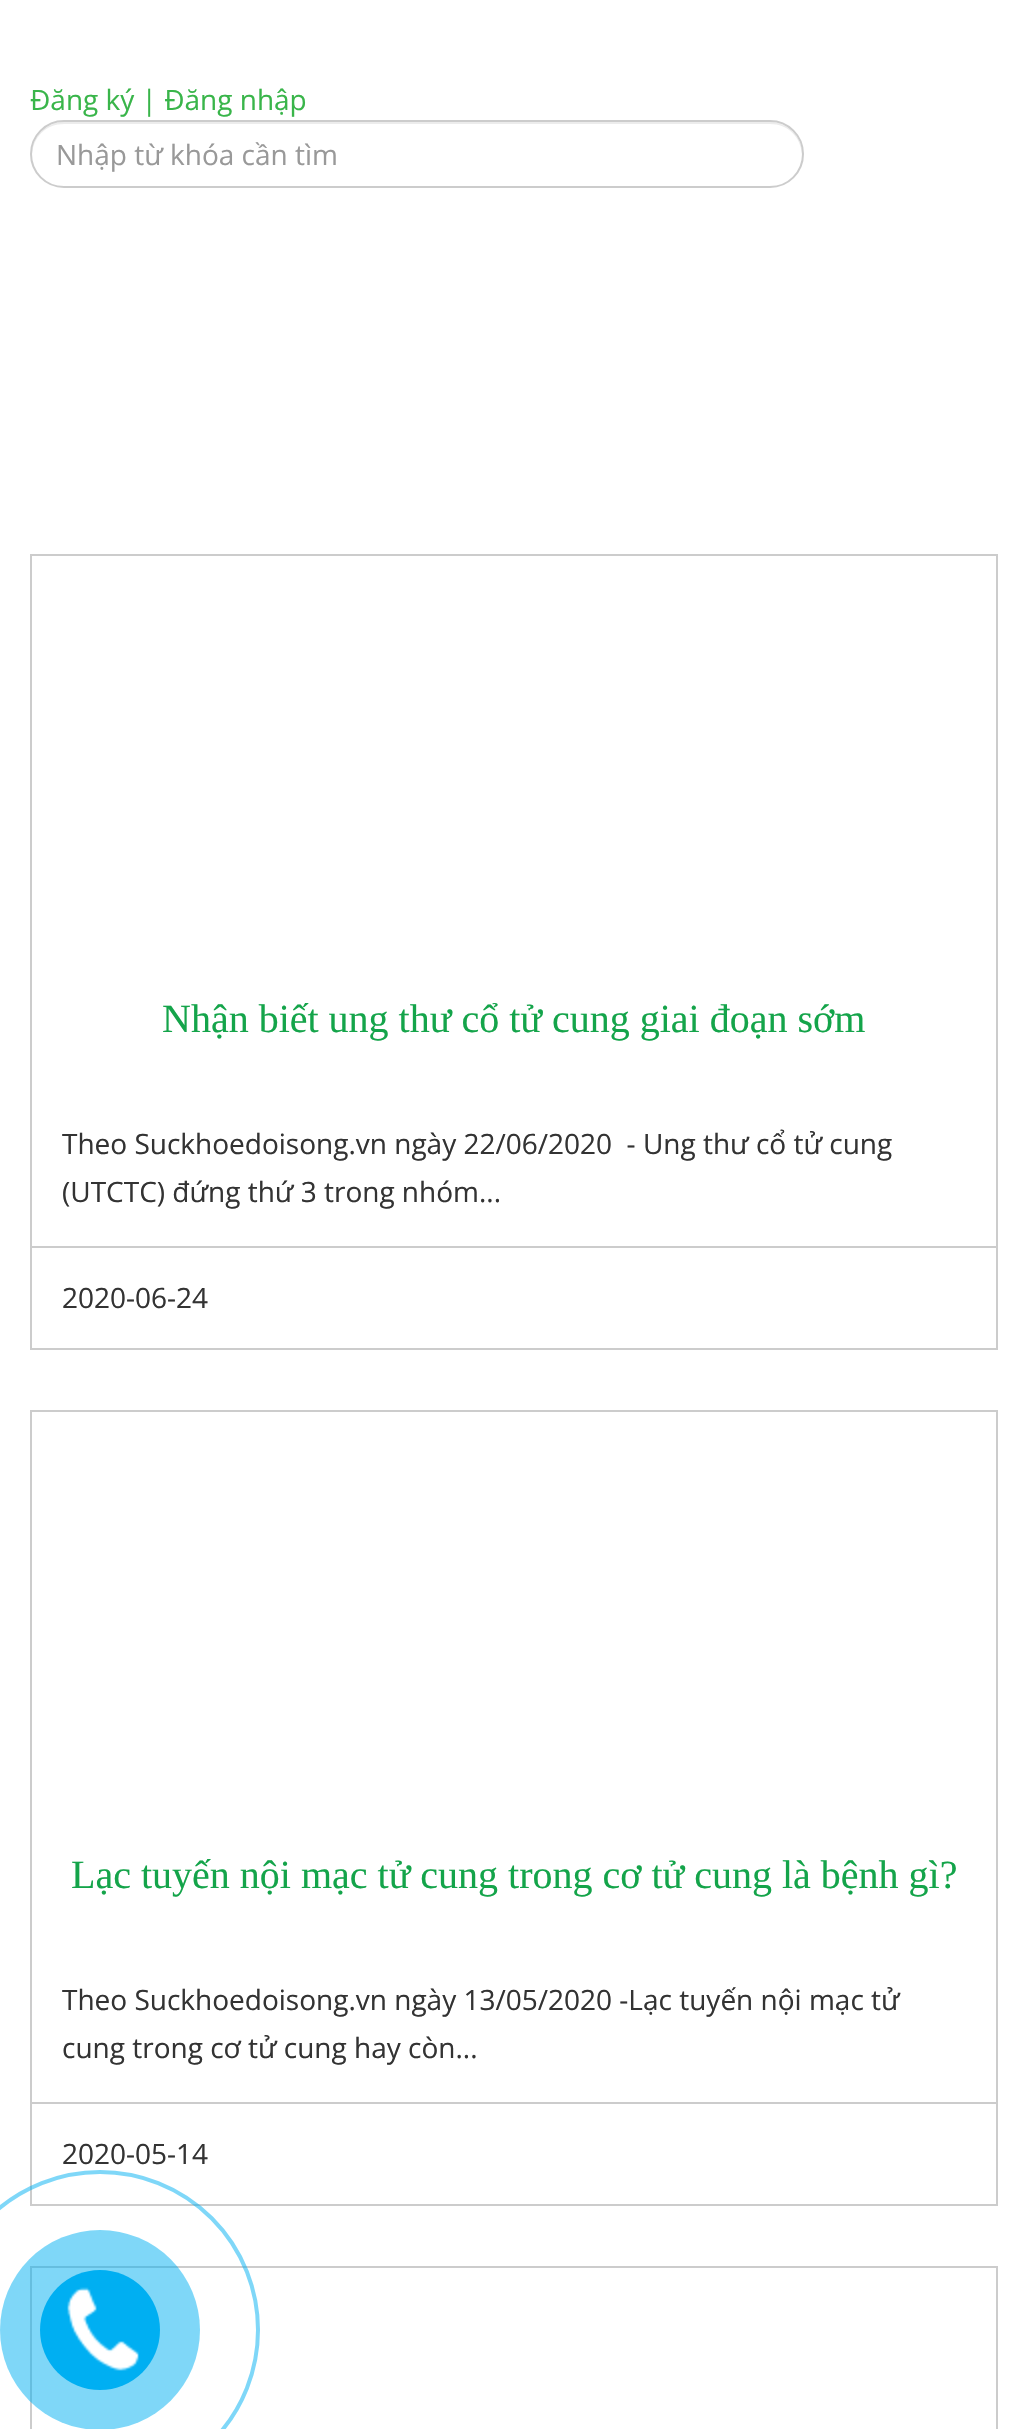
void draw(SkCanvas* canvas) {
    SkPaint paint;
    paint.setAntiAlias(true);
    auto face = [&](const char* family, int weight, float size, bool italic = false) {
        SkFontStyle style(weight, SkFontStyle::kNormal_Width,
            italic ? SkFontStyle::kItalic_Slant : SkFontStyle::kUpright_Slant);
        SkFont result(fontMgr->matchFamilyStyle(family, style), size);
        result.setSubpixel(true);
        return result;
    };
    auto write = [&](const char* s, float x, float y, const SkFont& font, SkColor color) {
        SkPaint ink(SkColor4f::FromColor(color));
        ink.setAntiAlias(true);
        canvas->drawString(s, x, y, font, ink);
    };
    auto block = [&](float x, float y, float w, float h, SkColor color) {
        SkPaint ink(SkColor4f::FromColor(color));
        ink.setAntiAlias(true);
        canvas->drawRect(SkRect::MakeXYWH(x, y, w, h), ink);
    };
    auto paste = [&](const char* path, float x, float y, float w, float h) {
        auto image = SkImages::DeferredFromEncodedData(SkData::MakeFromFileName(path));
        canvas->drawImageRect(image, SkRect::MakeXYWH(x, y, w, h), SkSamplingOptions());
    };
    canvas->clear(SK_ColorWHITE);
    auto kFont1 = face("Open Sans", 400, 28);
    write("Đăng ký | Đăng nhập", 30, 110, kFont1, SkColorSetRGB(57, 181, 74));
    paint.setColor(SkColorSetRGB(236, 236, 236));
    canvas->drawPath(SkPathBuilder().moveTo(64, 124).lineTo(770, 124).cubicTo(788, 124, 801, 137, 802, 155).cubicTo(803, 137, 788, 122, 770, 122).lineTo(64, 122).cubicTo(46, 122, 31, 137, 32, 155).cubicTo(33, 137, 46, 124, 64, 124).close().detach(), paint);
    paint.setStyle(SkPaint::kStroke_Style);
    paint.setStrokeWidth(2);
    paint.setColor(SkColorSetRGB(204, 204, 204));
    canvas->drawRoundRect(SkRect::MakeXYWH(31, 121, 772, 66), 33, 33, paint);
    write("Nhập từ khóa cần tìm", 56, 165, kFont1, SkColorSetRGB(153, 153, 153));
    canvas->drawRect(SkRect::MakeXYWH(31, 555, 966, 794), paint);
    auto kFont2 = face("Liberation Serif", 400, 40);
    write("Nhận biết ung thư cổ tử cung giai đoạn sớm", 162, 1032, kFont2, SkColorSetRGB(20, 164, 74));
    write("Theo Suckhoedoisong.vn ngày 22/06/2020  - Ung thư cổ tử cung", 62, 1154, kFont1, SkColorSetRGB(51, 51, 51));
    write("(UTCTC) đứng thứ 3 trong nhóm...", 62, 1202, kFont1, SkColorSetRGB(51, 51, 51));
    block(32, 1246, 964, 2, SkColorSetRGB(204, 204, 204));
    write("2020-06-24", 62, 1308, kFont1, SkColorSetRGB(51, 51, 51));
    canvas->drawRect(SkRect::MakeXYWH(31, 1411, 966, 794), paint);
    write("Lạc tuyến nội mạc tử cung trong cơ tử cung là bệnh gì?", 71, 1888, kFont2, SkColorSetRGB(20, 164, 74));
    write("Theo Suckhoedoisong.vn ngày 13/05/2020 -Lạc tuyến nội mạc tử", 62, 2010, kFont1, SkColorSetRGB(51, 51, 51));
    write("cung trong cơ tử cung hay còn...", 62, 2058, kFont1, SkColorSetRGB(51, 51, 51));
    block(32, 2102, 964, 2, SkColorSetRGB(204, 204, 204));
    write("2020-05-14", 62, 2164, kFont1, SkColorSetRGB(51, 51, 51));
    canvas->drawRect(SkRect::MakeXYWH(31, 2267, 966, 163), paint);
    paint.setStrokeWidth(4);
    paint.setColor(SkColorSetARGB(128, 0, 175, 242));
    canvas->drawCircle(100, 2330, 158, paint);
    paint.setStyle(SkPaint::kFill_Style);
    canvas->drawCircle(100, 2330, 100, paint);
    paint.setColor(SkColorSetRGB(0, 175, 242));
    canvas->drawCircle(100, 2330, 60, paint);
    paste("pic1.png", 67, 2287, 72, 84);
}
